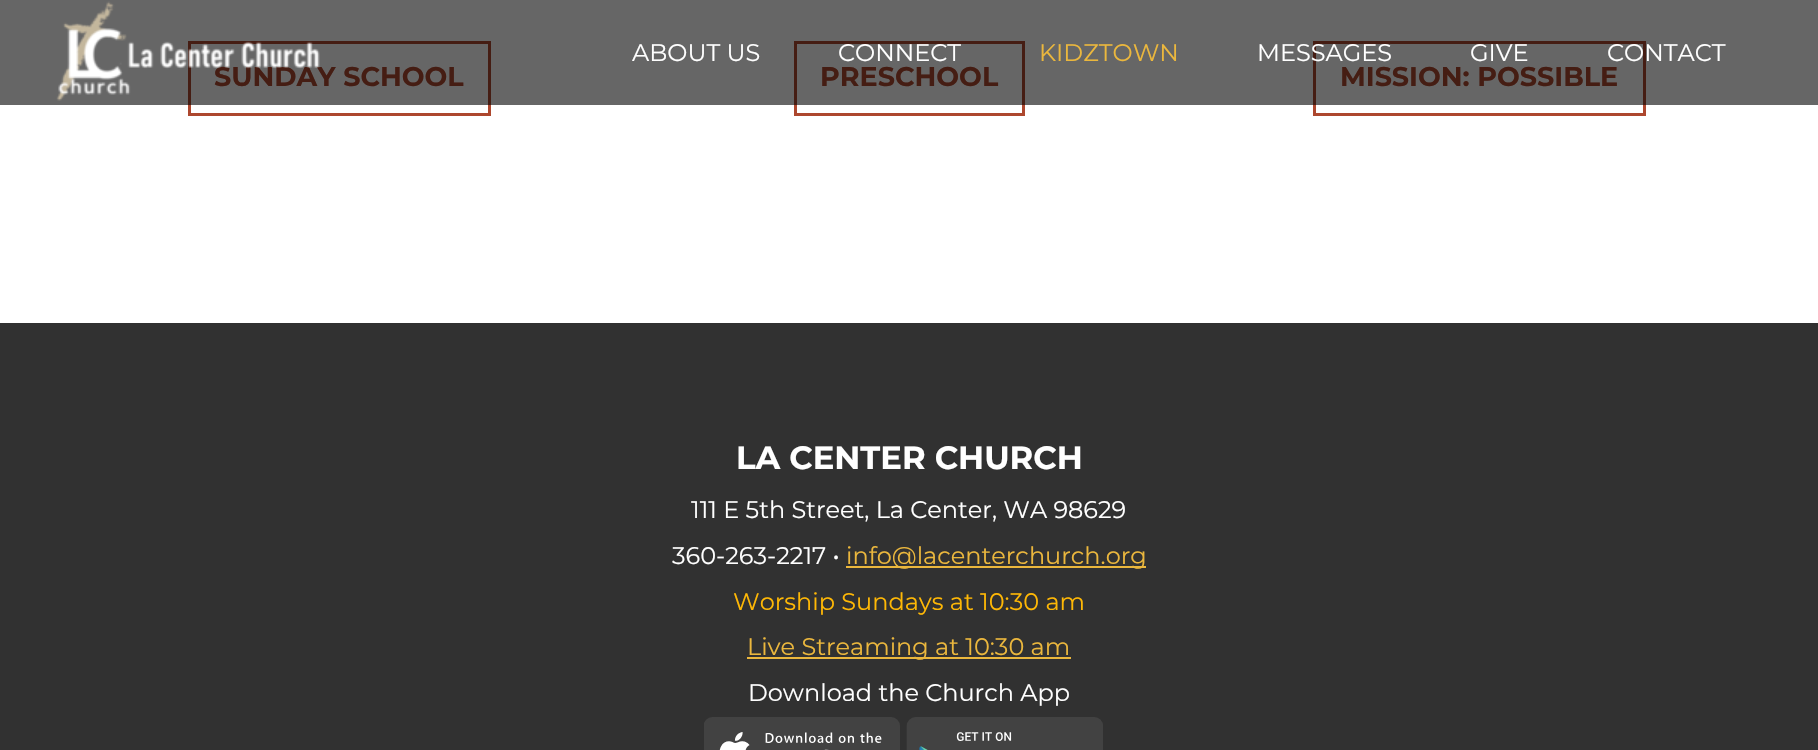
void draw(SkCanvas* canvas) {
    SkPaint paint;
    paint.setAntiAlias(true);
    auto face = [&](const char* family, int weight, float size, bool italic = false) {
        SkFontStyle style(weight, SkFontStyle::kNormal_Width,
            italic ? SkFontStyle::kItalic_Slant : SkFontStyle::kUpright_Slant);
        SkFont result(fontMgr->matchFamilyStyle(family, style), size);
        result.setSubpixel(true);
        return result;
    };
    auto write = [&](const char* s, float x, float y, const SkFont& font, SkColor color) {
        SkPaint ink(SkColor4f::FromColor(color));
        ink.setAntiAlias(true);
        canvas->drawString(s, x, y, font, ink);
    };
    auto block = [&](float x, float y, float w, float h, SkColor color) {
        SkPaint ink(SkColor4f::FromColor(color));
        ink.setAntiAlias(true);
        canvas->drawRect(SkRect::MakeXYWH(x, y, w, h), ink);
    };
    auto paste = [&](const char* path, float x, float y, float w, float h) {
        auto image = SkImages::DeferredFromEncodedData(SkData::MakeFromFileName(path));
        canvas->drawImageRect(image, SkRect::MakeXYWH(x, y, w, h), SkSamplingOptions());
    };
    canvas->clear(SkColorSetRGB(49, 49, 49));
    block(0, 0, 1818, 323, SK_ColorWHITE);
    paint.setStyle(SkPaint::kStroke_Style);
    paint.setStrokeWidth(3);
    paint.setColor(SkColorSetRGB(173, 71, 46));
    canvas->drawRect(SkRect::MakeXYWH(189.5f, 42.5f, 300, 72), paint);
    auto kFont1 = face("Montserrat", 700, 27);
    write("SUNDAY SCHOOL", 214, 86, kFont1, SkColorSetRGB(173, 71, 46));
    canvas->drawRect(SkRect::MakeXYWH(795.5f, 42.5f, 228, 72), paint);
    write("PRESCHOOL", 820, 86, kFont1, SkColorSetRGB(173, 71, 46));
    canvas->drawRect(SkRect::MakeXYWH(1314.5f, 42.5f, 330, 72), paint);
    write("MISSION: POSSIBLE", 1340, 86, kFont1, SkColorSetRGB(173, 71, 46));
    block(0, 0, 1818, 105, SkColorSetARGB(153, 0, 0, 0));
    paste("pic1.png", 56, 1, 264, 100);
    auto kFont2 = face("Montserrat", 400, 24);
    write("ABOUT US", 632, 61, kFont2, SK_ColorWHITE);
    write("CONNECT", 838, 61, kFont2, SK_ColorWHITE);
    write("KIDZTOWN", 1039, 61, kFont2, SkColorSetRGB(235, 183, 61));
    write("MESSAGES", 1257, 61, kFont2, SK_ColorWHITE);
    write("GIVE", 1470, 61, kFont2, SK_ColorWHITE);
    write("CONTACT", 1607, 61, kFont2, SK_ColorWHITE);
    auto kFont3 = face("Montserrat", 700, 32.25f);
    write("LA CENTER CHURCH", 736, 469, kFont3, SK_ColorWHITE);
    write("111 E 5th Street, La Center, WA 98629", 691, 518, kFont2, SK_ColorWHITE);
    write("360-263-2217 •", 672, 564, kFont2, SK_ColorWHITE);
    block(846, 566, 300, 2, SkColorSetRGB(235, 183, 61));
    write("info@lacenterchurch.org", 846, 564, kFont2, SkColorSetRGB(235, 183, 61));
    write("Worship Sundays at 10:30 am", 733, 610, kFont2, SkColorSetRGB(255, 184, 5));
    block(747, 657, 324, 2, SkColorSetRGB(235, 183, 61));
    write("Live Streaming at 10:30 am", 747, 655, kFont2, SkColorSetRGB(235, 183, 61));
    write("Download the Church App", 748, 701, kFont2, SK_ColorWHITE);
    paste("pic2.png", 704, 717, 399, 33);
}
